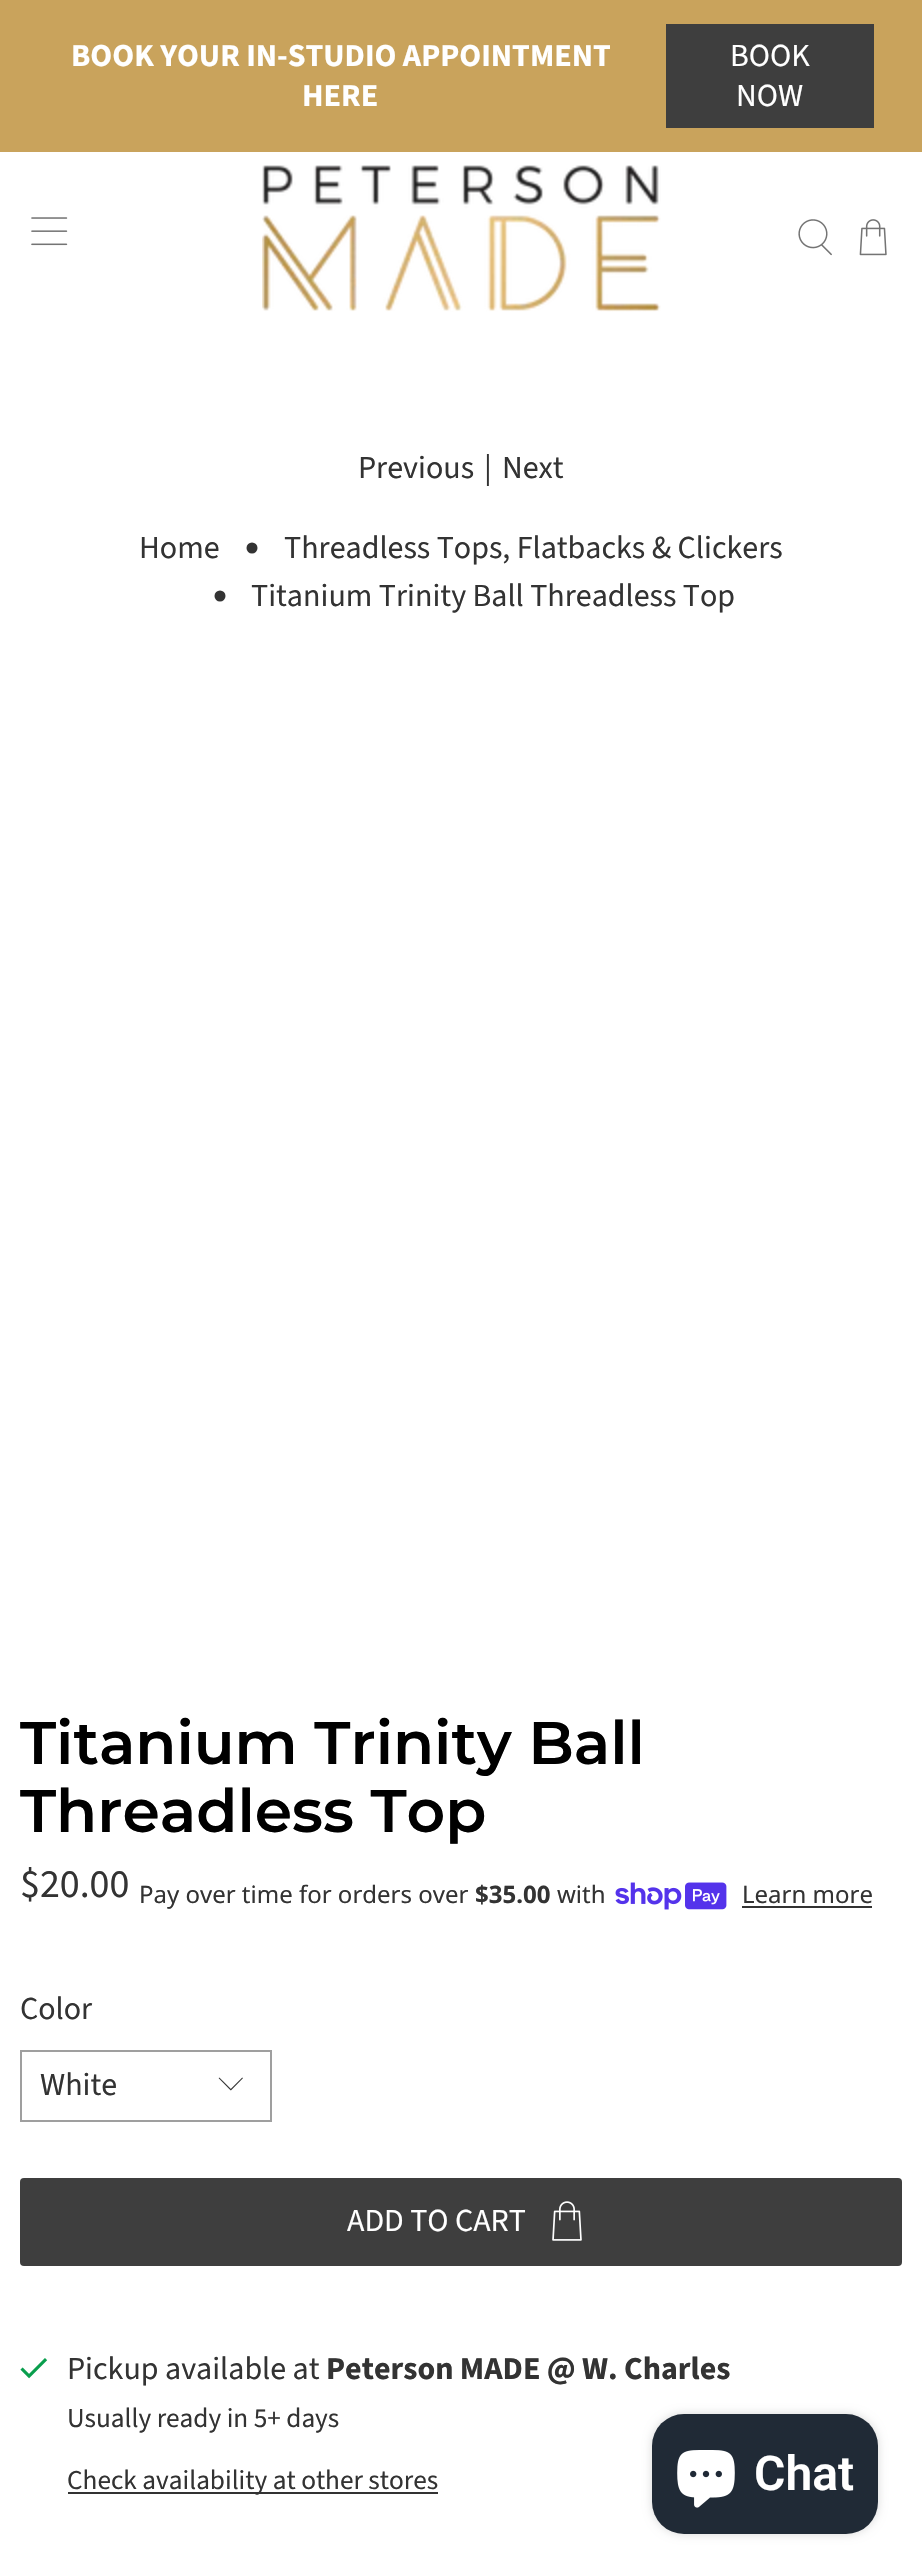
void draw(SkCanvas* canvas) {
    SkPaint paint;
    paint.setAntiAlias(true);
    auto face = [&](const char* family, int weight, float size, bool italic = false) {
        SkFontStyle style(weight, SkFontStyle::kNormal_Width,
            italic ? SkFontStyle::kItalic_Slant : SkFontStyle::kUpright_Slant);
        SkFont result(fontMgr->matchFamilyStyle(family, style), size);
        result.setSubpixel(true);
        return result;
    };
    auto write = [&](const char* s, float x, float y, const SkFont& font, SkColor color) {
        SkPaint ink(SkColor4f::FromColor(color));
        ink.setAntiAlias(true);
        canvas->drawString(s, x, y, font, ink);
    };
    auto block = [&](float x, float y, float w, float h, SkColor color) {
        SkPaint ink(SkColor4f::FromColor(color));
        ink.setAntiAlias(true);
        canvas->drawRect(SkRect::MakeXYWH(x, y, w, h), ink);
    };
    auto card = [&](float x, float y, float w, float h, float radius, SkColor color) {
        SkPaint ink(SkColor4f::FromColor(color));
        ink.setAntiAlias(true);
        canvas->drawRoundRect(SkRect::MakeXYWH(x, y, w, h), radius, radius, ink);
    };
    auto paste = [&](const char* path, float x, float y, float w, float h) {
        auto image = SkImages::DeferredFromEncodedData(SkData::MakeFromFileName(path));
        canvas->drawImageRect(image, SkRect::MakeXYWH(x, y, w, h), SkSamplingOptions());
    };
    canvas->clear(SK_ColorWHITE);
    block(0, 0, 922, 152, SkColorSetRGB(201, 163, 92));
    auto kFont1 = face("Source Sans Pro", 700, 32);
    write("BOOK YOUR IN-STUDIO APPOINTMENT", 71, 66, kFont1, SK_ColorWHITE);
    write("HERE", 302, 106, kFont1, SK_ColorWHITE);
    block(666, 24, 208, 104, SkColorSetRGB(62, 62, 62));
    auto kFont2 = face("Source Sans Pro", 400, 32);
    write("BOOK", 730, 66, kFont2, SK_ColorWHITE);
    write("NOW", 736, 106, kFont2, SK_ColorWHITE);
    paste("pic1.png", 31, 217, 37, 29);
    paste("pic2.png", 262, 165, 399, 147);
    paste("pic3.png", 798, 219, 34, 37);
    paste("pic4.png", 859, 219, 28, 37);
    write("Previous", 358, 478, kFont2, SkColorSetRGB(51, 51, 51));
    write("|", 484, 478, kFont2, SkColorSetRGB(51, 51, 51));
    write("Next", 502, 478, kFont2, SkColorSetRGB(51, 51, 51));
    write("Home", 139, 558, kFont2, SkColorSetRGB(51, 51, 51));
    paint.setColor(SkColorSetRGB(51, 51, 51));
    canvas->drawCircle(252, 548, 5.5f, paint);
    write("Threadless Tops, Flatbacks & Clickers", 284, 558, kFont2, SkColorSetRGB(51, 51, 51));
    canvas->drawCircle(220, 596, 5.5f, paint);
    write("Titanium Trinity Ball Threadless Top", 251, 606, kFont2, SkColorSetRGB(51, 51, 51));
    auto kFont3 = face("Montserrat", 600, 60);
    write("Titanium Trinity Ball", 20, 1764, kFont3, SK_ColorBLACK);
    write("Threadless Top", 20, 1832, kFont3, SK_ColorBLACK);
    auto kFont4 = face("Source Sans Pro", 400, 40);
    write("$20.00", 20, 1897, kFont4, SkColorSetRGB(51, 51, 51));
    auto kFont5 = face("Noto Sans", 400, 24);
    write("Pay over time for orders over", 139, 1903, kFont5, SkColorSetRGB(51, 51, 51));
    auto kFont6 = face("Noto Sans", 700, 24);
    write("$35.00", 475, 1903, kFont6, SkColorSetRGB(51, 51, 51));
    write("with", 557, 1903, kFont5, SkColorSetRGB(51, 51, 51));
    paste("pic5.png", 615, 1882, 112, 28);
    write("Learn more", 742, 1903, kFont5, SkColorSetRGB(51, 51, 51));
    block(742, 1906, 130, 2, SkColorSetRGB(51, 51, 51));
    write("Color", 20, 2019, kFont2, SkColorSetRGB(51, 51, 51));
    paint.setStyle(SkPaint::kStroke_Style);
    paint.setStrokeWidth(2);
    paint.setColor(SkColorSetRGB(159, 159, 159));
    canvas->drawRect(SkRect::MakeXYWH(21, 2051, 250, 70), paint);
    write("White", 40, 2095, kFont2, SkColorSetRGB(51, 51, 51));
    paste("pic6.png", 218, 2077, 25, 14);
    card(20, 2178, 882, 88, 4, SkColorSetRGB(62, 62, 62));
    write("ADD TO CART", 347, 2231, kFont2, SK_ColorWHITE);
    paste("pic7.png", 552, 2201, 30, 40);
    paste("pic8.png", 20, 2358, 28, 21);
    write("Pickup available at", 67, 2379, kFont2, SkColorSetRGB(51, 51, 51));
    write("Peterson MADE @ W. Charles", 326, 2379, kFont1, SkColorSetRGB(51, 51, 51));
    auto kFont7 = face("Source Sans Pro", 400, 27.25f);
    write("Usually ready in 5+ days", 67, 2427, kFont7, SkColorSetRGB(51, 51, 51));
    block(68, 2492, 370, 2, SkColorSetRGB(51, 51, 51));
    write("Check availability at other stores", 67, 2489, kFont7, SkColorSetRGB(51, 51, 51));
    paint.setStyle(SkPaint::kFill_Style);
    paint.setColor(SkColorSetARGB(38, 0, 0, 0));
    paint.setMaskFilter(SkMaskFilter::MakeBlur(kNormal_SkBlurStyle, 5));
    canvas->drawRoundRect(SkRect::MakeXYWH(652, 2414, 226, 120), 32, 32, paint);
    paint.setMaskFilter(nullptr);
    card(652, 2414, 226, 120, 32, SkColorSetRGB(32, 42, 54));
    paste("pic9.png", 677, 2450, 58, 58);
    auto kFont8 = face("Roboto", 600, 48);
    write("Chat", 754, 2490, kFont8, SK_ColorWHITE);
}
